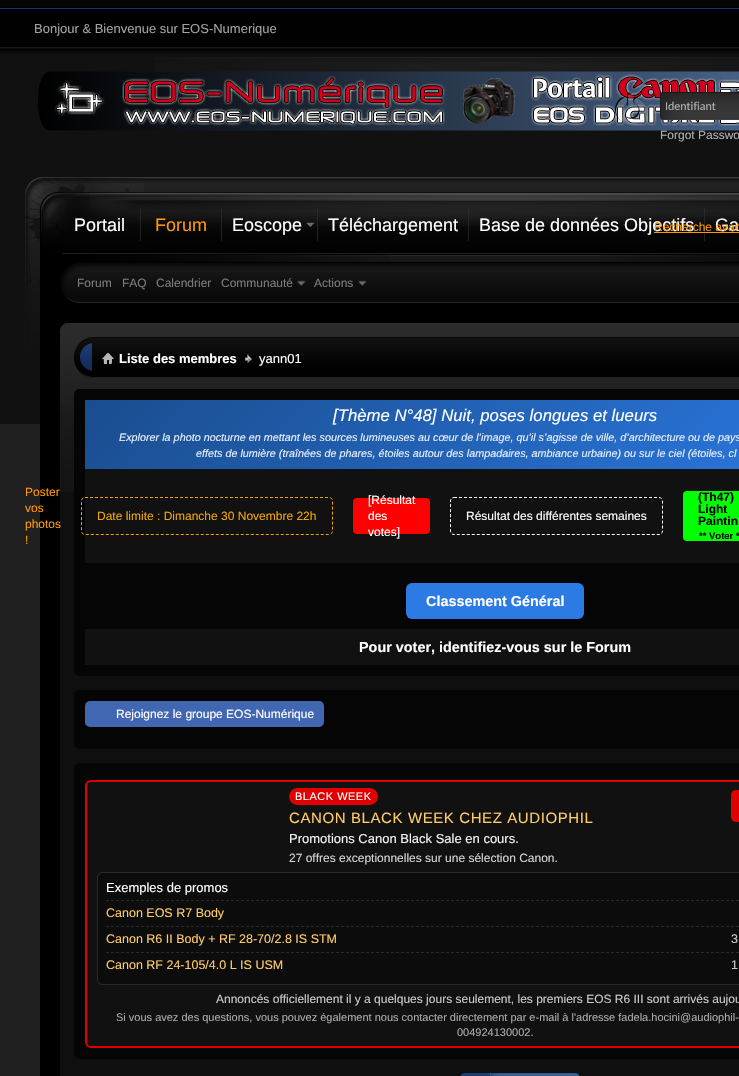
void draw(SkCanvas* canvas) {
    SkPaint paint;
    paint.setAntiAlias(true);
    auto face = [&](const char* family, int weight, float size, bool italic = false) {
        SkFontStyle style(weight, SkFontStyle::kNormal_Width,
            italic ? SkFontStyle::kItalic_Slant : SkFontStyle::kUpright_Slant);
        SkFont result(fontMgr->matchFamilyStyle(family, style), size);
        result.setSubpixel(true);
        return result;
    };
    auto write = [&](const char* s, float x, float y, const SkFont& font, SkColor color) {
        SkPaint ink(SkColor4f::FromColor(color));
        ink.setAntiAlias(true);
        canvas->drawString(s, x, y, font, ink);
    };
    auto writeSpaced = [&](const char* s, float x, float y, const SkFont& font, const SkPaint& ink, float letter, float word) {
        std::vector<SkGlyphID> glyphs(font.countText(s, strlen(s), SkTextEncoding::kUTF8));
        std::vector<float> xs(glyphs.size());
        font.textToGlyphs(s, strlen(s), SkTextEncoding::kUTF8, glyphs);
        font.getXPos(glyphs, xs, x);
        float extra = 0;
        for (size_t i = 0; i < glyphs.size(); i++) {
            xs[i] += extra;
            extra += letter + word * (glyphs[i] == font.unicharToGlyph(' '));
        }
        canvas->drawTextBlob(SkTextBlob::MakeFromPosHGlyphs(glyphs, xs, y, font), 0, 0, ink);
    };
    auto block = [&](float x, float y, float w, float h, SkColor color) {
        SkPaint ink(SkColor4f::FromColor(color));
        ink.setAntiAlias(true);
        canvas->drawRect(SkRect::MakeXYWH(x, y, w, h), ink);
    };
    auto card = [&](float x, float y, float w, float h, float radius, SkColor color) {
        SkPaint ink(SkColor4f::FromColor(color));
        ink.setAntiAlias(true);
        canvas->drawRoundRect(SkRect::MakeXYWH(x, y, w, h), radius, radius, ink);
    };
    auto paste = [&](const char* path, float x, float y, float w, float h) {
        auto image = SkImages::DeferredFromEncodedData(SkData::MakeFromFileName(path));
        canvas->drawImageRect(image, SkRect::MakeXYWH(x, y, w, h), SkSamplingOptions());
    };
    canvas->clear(SkColorSetRGB(32, 32, 32));
    paste("pic1.png", 0, 0, 739, 424);
    auto kFont1 = face("Liberation Sans", 400, 13);
    write("Bonjour & Bienvenue sur EOS-Numerique", 34, 33, kFont1, SkColorSetRGB(162, 162, 162));
    paste("pic2.png", 155, 57, 584, 15);
    paste("pic3.png", 38, 71, 701, 60);
    paste("pic4.png", 615, 92, 31, 33);
    paste("pic5.png", 660, 92, 79, 28);
    auto kFont2 = face("Carlito", 400, 12);
    write("Identifiant", 665, 110, kFont2, SkColorSetRGB(177, 177, 177));
    auto kFont3 = face("Liberation Sans", 400, 12);
    write("Forgot Passwo", 660, 139, kFont3, SkColorSetRGB(177, 177, 177));
    paste("pic6.png", 144, 177, 595, 146);
    paste("pic7.png", 25, 177, 119, 204);
    paste("pic8.png", 89, 194, 650, 32);
    paste("pic9.png", 390, 253, 349, 50);
    paste("pic10.png", 60, 253, 330, 50);
    paste("pic11.png", 600, 255, 139, 7);
    paste("pic12.png", 140, 208, 1, 33);
    auto kFont4 = face("Liberation Sans", 400, 18);
    write("Portail", 74, 231, kFont4, SK_ColorWHITE);
    paste("pic13.png", 221, 208, 1, 33);
    write("Forum", 155, 231, kFont4, SkColorSetRGB(255, 153, 0));
    paste("pic14.png", 317, 208, 1, 33);
    paste("pic15.png", 306, 222, 9, 5);
    write("Eoscope", 232, 231, kFont4, SK_ColorWHITE);
    paste("pic16.png", 468, 208, 1, 33);
    write("Téléchargement", 328, 231, kFont4, SK_ColorWHITE);
    paste("pic17.png", 704, 208, 1, 33);
    write("Base de données Objectifs", 479, 231, kFont4, SK_ColorWHITE);
    write("Ga", 715, 231, kFont4, SK_ColorWHITE);
    write("Forum", 77, 287, kFont3, SkColorSetRGB(125, 125, 125));
    write("FAQ", 122, 287, kFont3, SkColorSetRGB(125, 125, 125));
    write("Calendrier", 156, 287, kFont3, SkColorSetRGB(125, 125, 125));
    write("Communauté", 221, 287, kFont3, SkColorSetRGB(125, 125, 125));
    paste("pic18.png", 297, 280, 9, 6);
    write("Actions", 314, 287, kFont3, SkColorSetRGB(125, 125, 125));
    paste("pic18.png", 358, 280, 9, 6);
    write("Recherche avan", 654, 231, kFont3, SkColorSetRGB(255, 153, 0));
    block(654, 232, 85, 1, SkColorSetRGB(255, 153, 0));
    block(40, 381, 20, 695, SK_ColorBLACK);
    block(60, 492, 679, 584, SkColorSetRGB(15, 15, 15));
    paste("pic19.png", 60, 323, 679, 169);
    paste("pic20.png", 60, 323, 7, 7);
    paste("pic21.png", 74, 337, 18, 41);
    paste("pic22.png", 92, 337, 647, 41);
    paste("pic23.png", 102, 352, 12, 12);
    paste("pic24.png", 245, 354, 7, 10);
    auto kFont5 = face("Liberation Sans", 700, 13);
    write("Liste des membres", 119, 363, kFont5, SK_ColorWHITE);
    write("yann01", 259, 363, kFont1, SK_ColorWHITE);
    paint.setColor(SkColorSetRGB(5, 5, 5));
    canvas->drawRoundRect(SkRect::MakeXYWH(74.5f, 389.5f, 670, 286), 4.5f, 4.5f, paint);
    paint.setStyle(SkPaint::kStroke_Style);
    paint.setStrokeWidth(1);
    canvas->drawRoundRect(SkRect::MakeXYWH(74.5f, 389.5f, 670, 286), 4.5f, 4.5f, paint);
    paint.setStyle(SkPaint::kFill_Style);
    {
        const SkColor colors[] = {SkColorSetRGB(26, 77, 143), SkColorSetRGB(44, 123, 229)};
        const float stops[] = {0, 1};
        const SkPoint ends[] = {{273, 212}, {717, 657}};
        paint.setShader(SkGradientShader::MakeLinear(ends, colors, stops, 2, SkTileMode::kClamp));
        paint.setAlpha(255);
    }
    canvas->drawRect(SkRect::MakeXYWH(85, 400, 654, 69), paint);
    auto kFont6 = face("Liberation Sans", 400, 16.75f, true);
    write("[Thème N°48] Nuit, poses longues et lueurs", 333, 421, kFont6, SK_ColorWHITE);
    auto kFont7 = face("Liberation Sans", 400, 10.8f, true);
    write("Explorer la photo nocturne en mettant les sources lumineuses au cœur de l’image, qu’il s’agisse de ville, d’architecture ou de pays", 119, 441, kFont7, SkColorSetRGB(233, 239, 248));
    write("effets de lumière (traînées de phares, étoiles autour des lampadaires, ambiance urbaine) ou sur le ciel (étoiles, cl", 196, 457, kFont7, SkColorSetRGB(233, 239, 248));
    block(85, 469, 654, 94, SkColorSetRGB(17, 17, 17));
    write("Poster", 25, 496, kFont3, SkColorSetRGB(255, 153, 0));
    write("vos", 25, 512, kFont3, SkColorSetRGB(255, 153, 0));
    write("photos", 25, 528, kFont3, SkColorSetRGB(255, 153, 0));
    write("!", 25, 544, kFont3, SkColorSetRGB(255, 153, 0));
    paint.setStyle(SkPaint::kStroke_Style);
    paint.setShader(nullptr);
    paint.setColor(SkColorSetRGB(240, 165, 0));
    paint.setPathEffect(SkDashPathEffect::Make({{3, 2}}, 0));
    canvas->drawPath(SkPathBuilder().moveTo(85, 497.5f).lineTo(329, 497.5f).cubicTo(331, 497.5f, 332.5f, 499, 332.5f, 501).lineTo(332.5f, 531).cubicTo(332.5f, 533, 331, 534.5f, 329, 534.5f).lineTo(85, 534.5f).cubicTo(83, 534.5f, 81.5f, 533, 81.5f, 531).lineTo(81.5f, 501).cubicTo(81.5f, 499, 83, 497.5f, 85, 497.5f).close().detach(), paint);
    paint.setPathEffect(nullptr);
    write("Date limite : Dimanche 30 Novembre 22h", 97, 520, kFont3, SkColorSetRGB(240, 165, 0));
    card(353, 498, 77, 36, 4, SkColorSetRGB(255, 0, 0));
    write("[Résultat", 368, 504, kFont3, SK_ColorWHITE);
    write("des", 368, 520, kFont3, SK_ColorWHITE);
    write("votes]", 368, 536, kFont3, SK_ColorWHITE);
    paint.setColor(SK_ColorWHITE);
    paint.setPathEffect(SkDashPathEffect::Make({{3, 2}}, 0));
    canvas->drawPath(SkPathBuilder().moveTo(454, 497.5f).lineTo(659, 497.5f).cubicTo(661, 497.5f, 662.5f, 499, 662.5f, 501).lineTo(662.5f, 531).cubicTo(662.5f, 533, 661, 534.5f, 659, 534.5f).lineTo(454, 534.5f).cubicTo(452, 534.5f, 450.5f, 533, 450.5f, 531).lineTo(450.5f, 501).cubicTo(450.5f, 499, 452, 497.5f, 454, 497.5f).close().detach(), paint);
    paint.setPathEffect(nullptr);
    write("Résultat des différentes semaines", 466, 520, kFont3, SK_ColorWHITE);
    card(683, 491, 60, 50, 4, SkColorSetRGB(0, 255, 0));
    auto kFont8 = face("Liberation Sans", 700, 12);
    write("(Th47)", 698, 501, kFont8, SK_ColorBLACK);
    write("Light", 698, 513, kFont8, SK_ColorBLACK);
    write("Paintin", 698, 525, kFont8, SK_ColorBLACK);
    auto kFont9 = face("Liberation Sans", 700, 9.5f);
    write("** Voter *", 699, 539, kFont9, SK_ColorBLACK);
    card(406, 583, 178, 36, 6, SkColorSetRGB(44, 123, 229));
    auto kFont10 = face("Liberation Sans", 700, 14.4f);
    write("Classement Général", 426, 606, kFont10, SK_ColorWHITE);
    block(85, 629, 654, 36, SkColorSetRGB(17, 17, 17));
    write("Pour voter, identifiez-vous sur le Forum", 359, 652, kFont10, SK_ColorWHITE);
    card(74, 690, 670, 59, 5, SkColorSetRGB(5, 5, 5));
    card(85, 701, 239, 26, 5, SkColorSetRGB(66, 103, 178));
    write("Rejoignez le groupe EOS-Numérique", 116, 718, kFont3, SK_ColorWHITE);
    card(74, 763, 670, 296, 5, SkColorSetRGB(5, 5, 5));
    paint.setStyle(SkPaint::kFill_Style);
    paint.setColor(SkColorSetRGB(17, 17, 17));
    canvas->drawRoundRect(SkRect::MakeXYWH(86, 781, 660, 266), 5, 5, paint);
    paint.setStyle(SkPaint::kStroke_Style);
    paint.setStrokeWidth(2);
    paint.setColor(SkColorSetRGB(224, 0, 0));
    canvas->drawRoundRect(SkRect::MakeXYWH(86, 781, 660, 266), 5, 5, paint);
    card(289, 788, 89, 17, 8.5f, SkColorSetRGB(224, 0, 0));
    auto kFont11 = face("Liberation Sans", 400, 11);
    paint.setStyle(SkPaint::kFill_Style);
    paint.setColor(SK_ColorWHITE);
    writeSpaced("BLACK WEEK", 295, 800, kFont11, paint, 0.5f, 0);
    auto kFont12 = face("Liberation Sans", 400, 15);
    paint.setColor(SkColorSetRGB(255, 204, 102));
    writeSpaced("CANON BLACK WEEK CHEZ AUDIOPHIL", 289, 823, kFont12, paint, 0.6f, 0);
    write("Promotions Canon Black Sale en cours.", 289, 843, kFont1, SkColorSetRGB(245, 245, 245));
    write("27 offres exceptionnelles sur une sélection Canon.", 289, 862, kFont3, SkColorSetRGB(214, 214, 214));
    card(731, 790, 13, 32, 5, SkColorSetRGB(224, 0, 0));
    paint.setColor(SkColorSetRGB(12, 12, 12));
    canvas->drawRoundRect(SkRect::MakeXYWH(97.5f, 872.5f, 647, 112), 4.5f, 4.5f, paint);
    paint.setStyle(SkPaint::kStroke_Style);
    paint.setStrokeWidth(1);
    paint.setColor(SkColorSetRGB(42, 42, 42));
    canvas->drawRoundRect(SkRect::MakeXYWH(97.5f, 872.5f, 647, 112), 4.5f, 4.5f, paint);
    write("Exemples de promos", 106, 892, kFont1, SK_ColorWHITE);
    paint.setPathEffect(SkDashPathEffect::Make({{3, 2}}, 0));
    canvas->drawPath(SkPathBuilder().moveTo(106, 900.5f).lineTo(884, 900.5f).detach(), paint);
    paint.setPathEffect(nullptr);
    auto kFont13 = face("Liberation Sans", 400, 12.5f);
    write("Canon EOS R7 Body", 106, 917, kFont13, SkColorSetRGB(255, 204, 102));
    paint.setPathEffect(SkDashPathEffect::Make({{3, 2}}, 0));
    canvas->drawPath(SkPathBuilder().moveTo(106, 926.5f).lineTo(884, 926.5f).detach(), paint);
    paint.setPathEffect(nullptr);
    write("Canon R6 II Body + RF 28-70/2.8 IS STM", 106, 943, kFont13, SkColorSetRGB(255, 204, 102));
    write("3", 731, 943, kFont13, SkColorSetRGB(204, 204, 204));
    paint.setPathEffect(SkDashPathEffect::Make({{3, 2}}, 0));
    canvas->drawPath(SkPathBuilder().moveTo(106, 952.5f).lineTo(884, 952.5f).detach(), paint);
    paint.setPathEffect(nullptr);
    write("Canon RF 24-105/4.0 L IS USM", 106, 969, kFont13, SkColorSetRGB(255, 204, 102));
    write("1", 731, 969, kFont13, SkColorSetRGB(204, 204, 204));
    write("Annoncés officiellement il y a quelques jours seulement, les premiers EOS R6 III sont arrivés aujou", 216, 1003, kFont3, SkColorSetRGB(204, 204, 204));
    write("Si vous avez des questions, vous pouvez également nous contacter directement par e-mail à l'adresse fadela.hocini@audiophil-", 116, 1021, kFont11, SkColorSetRGB(170, 170, 170));
    write("004924130002.", 457, 1036, kFont11, SkColorSetRGB(170, 170, 170));
    paste("pic25.png", 460, 1073, 120, 3);
}
